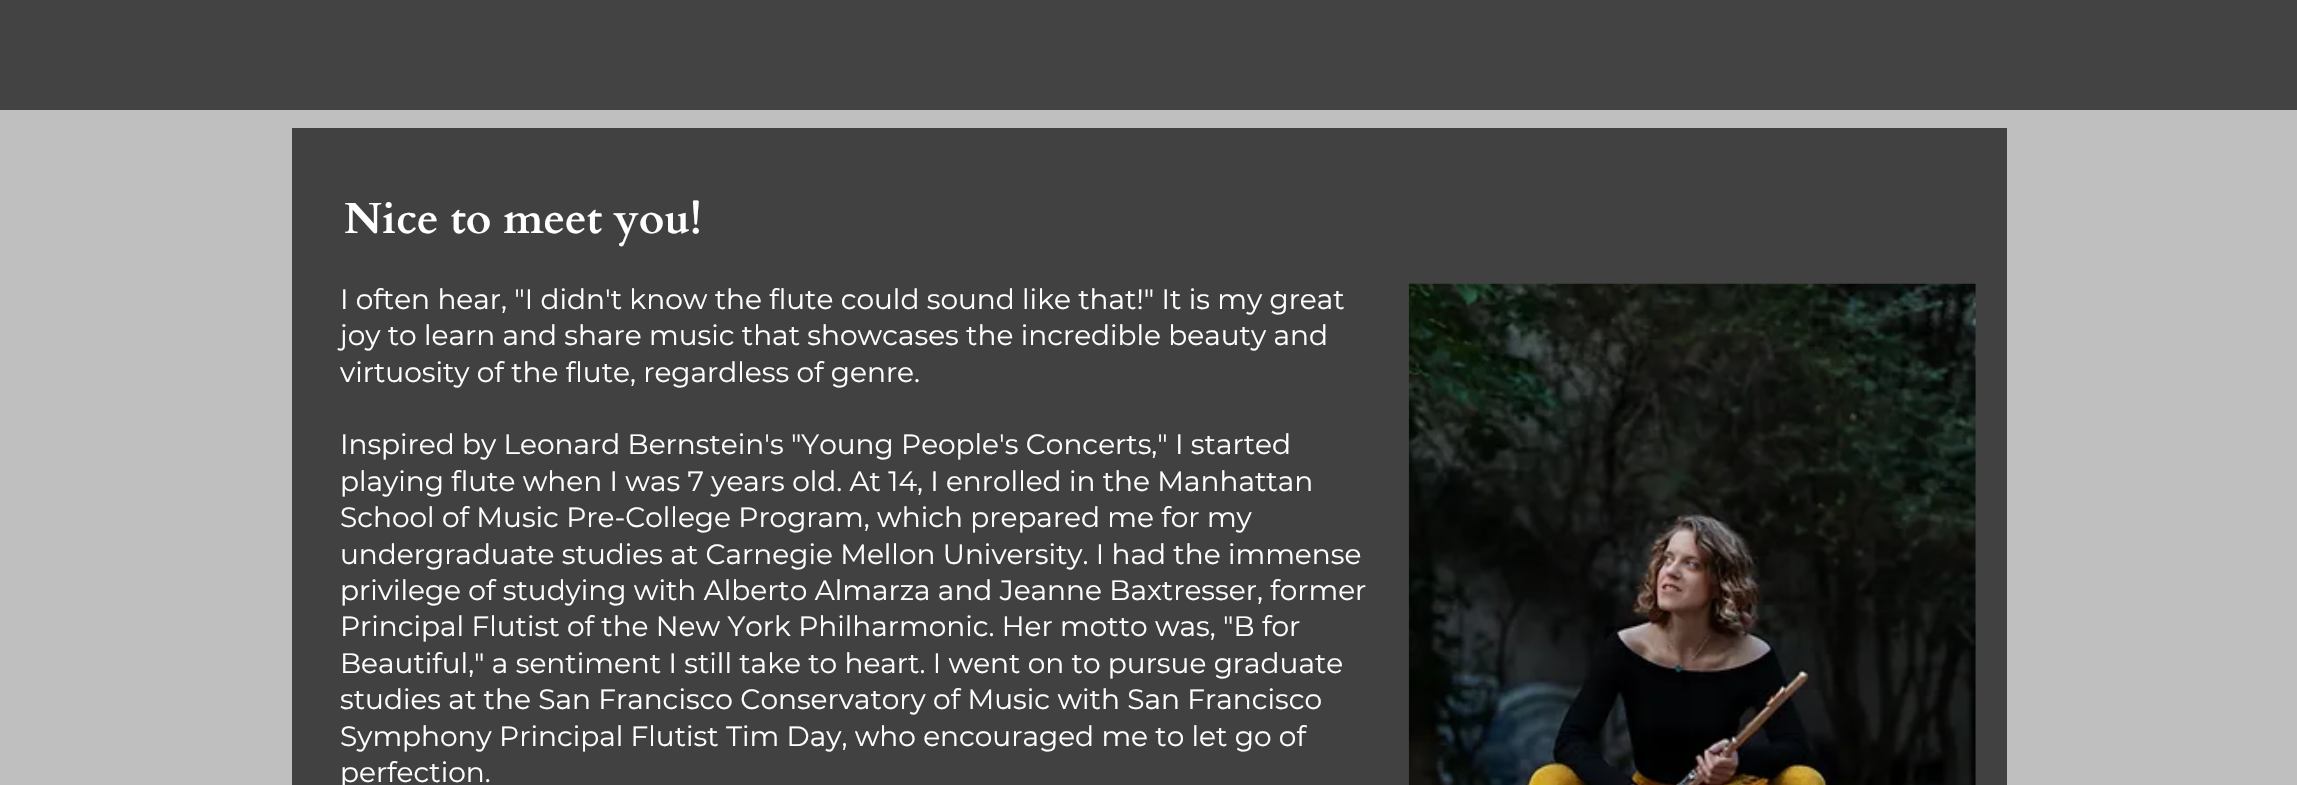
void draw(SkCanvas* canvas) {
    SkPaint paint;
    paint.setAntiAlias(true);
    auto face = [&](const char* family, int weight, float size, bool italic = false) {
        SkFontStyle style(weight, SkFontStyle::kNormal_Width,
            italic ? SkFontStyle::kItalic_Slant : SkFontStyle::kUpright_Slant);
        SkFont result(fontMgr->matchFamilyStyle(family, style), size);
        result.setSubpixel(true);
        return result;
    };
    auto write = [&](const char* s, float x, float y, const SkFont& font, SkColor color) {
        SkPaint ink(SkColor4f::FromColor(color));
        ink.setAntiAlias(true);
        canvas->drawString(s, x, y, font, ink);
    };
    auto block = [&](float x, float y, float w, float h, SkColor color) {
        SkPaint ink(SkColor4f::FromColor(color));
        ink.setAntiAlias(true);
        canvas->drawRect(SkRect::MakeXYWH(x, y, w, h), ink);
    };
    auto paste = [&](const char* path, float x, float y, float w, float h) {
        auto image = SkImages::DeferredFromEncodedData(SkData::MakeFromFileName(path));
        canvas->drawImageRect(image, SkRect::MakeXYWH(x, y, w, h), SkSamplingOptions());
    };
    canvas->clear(SkColorSetRGB(191, 191, 191));
    block(0, 0, 2297, 110, SkColorSetRGB(67, 67, 67));
    block(292, 128, 1715, 657, SkColorSetRGB(65, 65, 65));
    auto kFont1 = face("Cardo", 700, 43.75f);
    write("Nice to meet you!", 344, 233, kFont1, SK_ColorWHITE);
    auto kFont2 = face("Montserrat", 400, 28);
    write("I often hear, \"I didn't know the flute could sound like that!\" It is my great", 340, 309, kFont2, SK_ColorWHITE);
    write("joy to learn and share music that showcases the incredible beauty and", 340, 345, kFont2, SK_ColorWHITE);
    write("virtuosity of the flute, regardless of genre.", 340, 382, kFont2, SK_ColorWHITE);
    write("Inspired by Leonard Bernstein's \"Young People's Concerts,\" I started", 340, 454, kFont2, SK_ColorWHITE);
    write("playing flute when I was 7 years old. At 14, I enrolled in the Manhattan", 340, 491, kFont2, SK_ColorWHITE);
    write("School of Music Pre-College Program, which prepared me for my", 340, 527, kFont2, SK_ColorWHITE);
    write("undergraduate studies at Carnegie Mellon University. I had the immense", 340, 564, kFont2, SK_ColorWHITE);
    write("privilege of studying with Alberto Almarza and Jeanne Baxtresser, former", 340, 600, kFont2, SK_ColorWHITE);
    write("Principal Flutist of the New York Philharmonic. Her motto was, \"B for", 340, 636, kFont2, SK_ColorWHITE);
    write("Beautiful,\" a sentiment I still take to heart. I went on to pursue graduate", 340, 673, kFont2, SK_ColorWHITE);
    write("studies at the San Francisco Conservatory of Music with San Francisco", 340, 709, kFont2, SK_ColorWHITE);
    write("Symphony Principal Flutist Tim Day, who encouraged me to let go of", 340, 746, kFont2, SK_ColorWHITE);
    write("perfection.", 340, 782, kFont2, SK_ColorWHITE);
    paste("pic1.png", 1408, 283, 568, 502);
}
